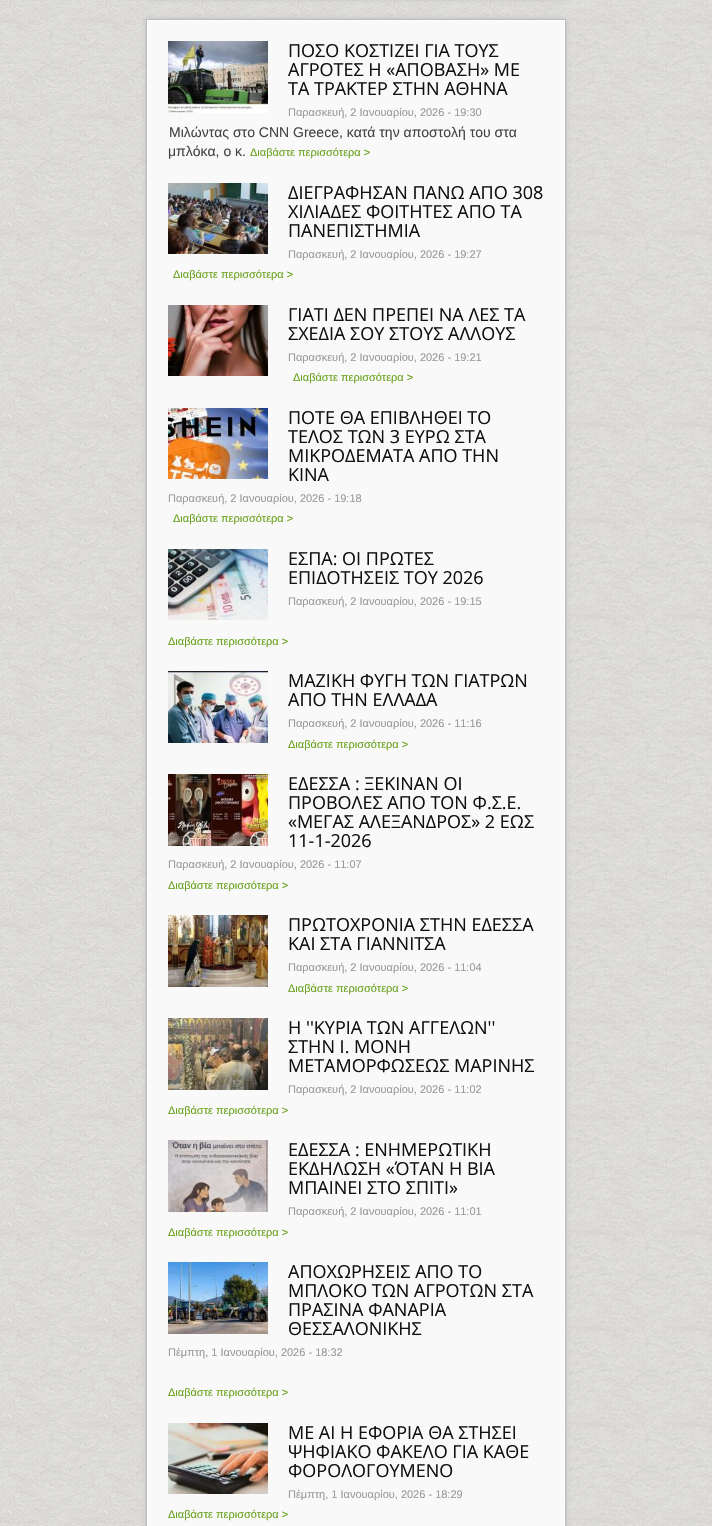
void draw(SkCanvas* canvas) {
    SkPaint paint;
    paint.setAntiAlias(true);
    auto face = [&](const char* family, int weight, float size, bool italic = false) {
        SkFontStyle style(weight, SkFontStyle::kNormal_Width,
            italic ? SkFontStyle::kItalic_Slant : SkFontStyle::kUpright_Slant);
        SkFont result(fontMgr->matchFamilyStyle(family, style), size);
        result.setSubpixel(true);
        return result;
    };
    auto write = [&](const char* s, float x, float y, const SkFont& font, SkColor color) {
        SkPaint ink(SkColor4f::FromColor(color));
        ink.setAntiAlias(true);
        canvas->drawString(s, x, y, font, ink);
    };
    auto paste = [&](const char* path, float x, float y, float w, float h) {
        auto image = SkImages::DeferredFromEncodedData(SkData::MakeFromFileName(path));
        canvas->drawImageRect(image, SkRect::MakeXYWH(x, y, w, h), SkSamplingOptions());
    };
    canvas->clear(SK_ColorWHITE);
    paste("pic1.png", 0, 0, 712, 1526);
    paint.setColor(SkColorSetRGB(187, 187, 187));
    paint.setMaskFilter(SkMaskFilter::MakeBlur(kNormal_SkBlurStyle, 2.5f));
    canvas->drawRect(SkRect::MakeXYWH(146, -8, 420, 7), paint);
    paint.setMaskFilter(nullptr);
    paint.setMaskFilter(SkMaskFilter::MakeBlur(kNormal_SkBlurStyle, 2.5f));
    canvas->drawRect(SkRect::MakeXYWH(146, 19, 420, 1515), paint);
    paint.setMaskFilter(nullptr);
    paint.setStyle(SkPaint::kStroke_Style);
    paint.setStrokeWidth(1);
    canvas->drawRect(SkRect::MakeXYWH(146.5f, 19.5f, 419, 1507), paint);
    paint.setStyle(SkPaint::kFill_Style);
    paint.setColor(SkColorSetRGB(249, 249, 249));
    canvas->drawRect(SkRect::MakeXYWH(147.5f, 20.5f, 417, 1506), paint);
    paint.setStyle(SkPaint::kStroke_Style);
    paint.setColor(SK_ColorWHITE);
    canvas->drawRect(SkRect::MakeXYWH(147.5f, 20.5f, 417, 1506), paint);
    paste("pic2.png", 168, 41, 100, 72);
    auto kFont1 = face("Open Sans", 400, 18);
    write("ΠΟΣΟ ΚΟΣΤΙΖΕΙ ΓΙΑ ΤΟΥΣ", 288, 57, kFont1, SkColorSetRGB(17, 17, 17));
    write("ΑΓΡΟΤΕΣ Η «ΑΠΟΒΑΣΗ» ΜΕ", 288, 76, kFont1, SkColorSetRGB(17, 17, 17));
    write("ΤΑ ΤΡΑΚΤΕΡ ΣΤΗΝ ΑΘΗΝΑ", 288, 95, kFont1, SkColorSetRGB(17, 17, 17));
    auto kFont2 = face("Liberation Sans", 400, 11);
    write("Παρασκευή, 2 Ιανουαρίου, 2026 - 19:30", 288, 116, kFont2, SkColorSetRGB(153, 153, 153));
    auto kFont3 = face("Liberation Sans", 400, 14);
    write("Μιλώντας στο CNN Greece, κατά την αποστολή του στα", 169, 137, kFont3, SkColorSetRGB(68, 68, 68));
    write("μπλόκα, ο κ.", 168, 156, kFont3, SkColorSetRGB(68, 68, 68));
    write("Διαβάστε περισσότερα >", 250, 156, kFont2, SkColorSetRGB(103, 161, 26));
    paste("pic3.png", 168, 183, 100, 71);
    write("ΔΙΕΓΡΑΦΗΣΑΝ ΠΑΝΩ ΑΠΟ 308", 288, 199, kFont1, SkColorSetRGB(17, 17, 17));
    write("ΧΙΛΙΑΔΕΣ ΦΟΙΤΗΤΕΣ ΑΠΟ ΤΑ", 288, 218, kFont1, SkColorSetRGB(17, 17, 17));
    write("ΠΑΝΕΠΙΣΤΗΜΙΑ", 288, 237, kFont1, SkColorSetRGB(17, 17, 17));
    write("Παρασκευή, 2 Ιανουαρίου, 2026 - 19:27", 288, 258, kFont2, SkColorSetRGB(153, 153, 153));
    write("Διαβάστε περισσότερα >", 173, 278, kFont2, SkColorSetRGB(103, 161, 26));
    paste("pic4.png", 168, 305, 100, 71);
    write("ΓΙΑΤΙ ΔΕΝ ΠΡΕΠΕΙ ΝΑ ΛΕΣ ΤΑ", 288, 321, kFont1, SkColorSetRGB(17, 17, 17));
    write("ΣΧΕΔΙΑ ΣΟΥ ΣΤΟΥΣ ΑΛΛΟΥΣ", 288, 340, kFont1, SkColorSetRGB(17, 17, 17));
    write("Παρασκευή, 2 Ιανουαρίου, 2026 - 19:21", 288, 361, kFont2, SkColorSetRGB(153, 153, 153));
    write("Διαβάστε περισσότερα >", 293, 381, kFont2, SkColorSetRGB(103, 161, 26));
    paste("pic5.png", 168, 408, 100, 71);
    write("ΠΟΤΕ ΘΑ ΕΠΙΒΛΗΘΕΙ ΤΟ", 288, 424, kFont1, SkColorSetRGB(17, 17, 17));
    write("ΤΕΛΟΣ ΤΩΝ 3 ΕΥΡΩ ΣΤΑ", 288, 443, kFont1, SkColorSetRGB(17, 17, 17));
    write("ΜΙΚΡΟΔΕΜΑΤΑ ΑΠΟ ΤΗΝ", 288, 462, kFont1, SkColorSetRGB(17, 17, 17));
    write("ΚΙΝΑ", 288, 481, kFont1, SkColorSetRGB(17, 17, 17));
    write("Παρασκευή, 2 Ιανουαρίου, 2026 - 19:18", 168, 502, kFont2, SkColorSetRGB(153, 153, 153));
    write("Διαβάστε περισσότερα >", 173, 522, kFont2, SkColorSetRGB(103, 161, 26));
    paste("pic6.png", 168, 549, 100, 71);
    write("ΕΣΠΑ: ΟΙ ΠΡΩΤΕΣ", 288, 565, kFont1, SkColorSetRGB(17, 17, 17));
    write("ΕΠΙΔΟΤΗΣΕΙΣ ΤΟΥ 2026", 288, 584, kFont1, SkColorSetRGB(17, 17, 17));
    write("Παρασκευή, 2 Ιανουαρίου, 2026 - 19:15", 288, 605, kFont2, SkColorSetRGB(153, 153, 153));
    write("Διαβάστε περισσότερα >", 168, 645, kFont2, SkColorSetRGB(103, 161, 26));
    paste("pic7.png", 168, 671, 100, 72);
    write("ΜΑΖΙΚΗ ΦΥΓΗ ΤΩΝ ΓΙΑΤΡΩΝ", 288, 687, kFont1, SkColorSetRGB(17, 17, 17));
    write("ΑΠΟ ΤΗΝ ΕΛΛΑΔΑ", 288, 706, kFont1, SkColorSetRGB(17, 17, 17));
    write("Παρασκευή, 2 Ιανουαρίου, 2026 - 11:16", 288, 727, kFont2, SkColorSetRGB(153, 153, 153));
    write("Διαβάστε περισσότερα >", 288, 748, kFont2, SkColorSetRGB(103, 161, 26));
    paste("pic8.png", 168, 774, 100, 72);
    write("ΕΔΕΣΣΑ : ΞΕΚΙΝΑΝ ΟΙ", 288, 790, kFont1, SkColorSetRGB(17, 17, 17));
    write("ΠΡΟΒΟΛΕΣ ΑΠΟ ΤΟΝ Φ.Σ.Ε.", 288, 809, kFont1, SkColorSetRGB(17, 17, 17));
    write("«ΜΕΓΑΣ ΑΛΕΞΑΝΔΡΟΣ» 2 ΕΩΣ", 288, 828, kFont1, SkColorSetRGB(17, 17, 17));
    write("11-1-2026", 288, 847, kFont1, SkColorSetRGB(17, 17, 17));
    write("Παρασκευή, 2 Ιανουαρίου, 2026 - 11:07", 168, 868, kFont2, SkColorSetRGB(153, 153, 153));
    write("Διαβάστε περισσότερα >", 168, 889, kFont2, SkColorSetRGB(103, 161, 26));
    paste("pic9.png", 168, 915, 100, 72);
    write("ΠΡΩΤΟΧΡΟΝΙΑ ΣΤΗΝ ΕΔΕΣΣΑ", 288, 931, kFont1, SkColorSetRGB(17, 17, 17));
    write("ΚΑΙ ΣΤΑ ΓΙΑΝΝΙΤΣΑ", 288, 950, kFont1, SkColorSetRGB(17, 17, 17));
    write("Παρασκευή, 2 Ιανουαρίου, 2026 - 11:04", 288, 971, kFont2, SkColorSetRGB(153, 153, 153));
    write("Διαβάστε περισσότερα >", 288, 992, kFont2, SkColorSetRGB(103, 161, 26));
    paste("pic10.png", 168, 1018, 100, 72);
    write("Η ''ΚΥΡΙΑ ΤΩΝ ΑΓΓΕΛΩΝ''", 288, 1034, kFont1, SkColorSetRGB(17, 17, 17));
    write("ΣΤΗΝ Ι. ΜΟΝΗ", 288, 1053, kFont1, SkColorSetRGB(17, 17, 17));
    write("ΜΕΤΑΜΟΡΦΩΣΕΩΣ ΜΑΡΙΝΗΣ", 288, 1072, kFont1, SkColorSetRGB(17, 17, 17));
    write("Παρασκευή, 2 Ιανουαρίου, 2026 - 11:02", 288, 1093, kFont2, SkColorSetRGB(153, 153, 153));
    write("Διαβάστε περισσότερα >", 168, 1114, kFont2, SkColorSetRGB(103, 161, 26));
    paste("pic11.png", 168, 1140, 100, 72);
    write("ΕΔΕΣΣΑ : ΕΝΗΜΕΡΩΤΙΚΗ", 288, 1156, kFont1, SkColorSetRGB(17, 17, 17));
    write("ΕΚΔΗΛΩΣΗ «ΌΤΑΝ Η ΒΙΑ", 288, 1175, kFont1, SkColorSetRGB(17, 17, 17));
    write("ΜΠΑΙΝΕΙ ΣΤΟ ΣΠΙΤΙ»", 288, 1194, kFont1, SkColorSetRGB(17, 17, 17));
    write("Παρασκευή, 2 Ιανουαρίου, 2026 - 11:01", 288, 1215, kFont2, SkColorSetRGB(153, 153, 153));
    write("Διαβάστε περισσότερα >", 168, 1236, kFont2, SkColorSetRGB(103, 161, 26));
    paste("pic12.png", 168, 1262, 100, 72);
    write("ΑΠΟΧΩΡΗΣΕΙΣ ΑΠΟ ΤΟ", 288, 1278, kFont1, SkColorSetRGB(17, 17, 17));
    write("ΜΠΛΟΚΟ ΤΩΝ ΑΓΡΟΤΩΝ ΣΤΑ", 288, 1297, kFont1, SkColorSetRGB(17, 17, 17));
    write("ΠΡΑΣΙΝΑ ΦΑΝΑΡΙΑ", 288, 1316, kFont1, SkColorSetRGB(17, 17, 17));
    write("ΘΕΣΣΑΛΟΝΙΚΗΣ", 288, 1335, kFont1, SkColorSetRGB(17, 17, 17));
    write("Πέμπτη, 1 Ιανουαρίου, 2026 - 18:32", 168, 1356, kFont2, SkColorSetRGB(153, 153, 153));
    write("Διαβάστε περισσότερα >", 168, 1396, kFont2, SkColorSetRGB(103, 161, 26));
    paste("pic13.png", 168, 1423, 100, 71);
    write("ME AI H ΕΦΟΡΙΑ ΘΑ ΣΤΗΣΕΙ", 288, 1439, kFont1, SkColorSetRGB(17, 17, 17));
    write("ΨΗΦΙΑΚΟ ΦΑΚΕΛΟ ΓΙΑ ΚΑΘΕ", 288, 1458, kFont1, SkColorSetRGB(17, 17, 17));
    write("ΦΟΡΟΛΟΓΟΥΜΕΝΟ", 288, 1477, kFont1, SkColorSetRGB(17, 17, 17));
    write("Πέμπτη, 1 Ιανουαρίου, 2026 - 18:29", 288, 1498, kFont2, SkColorSetRGB(153, 153, 153));
    write("Διαβάστε περισσότερα >", 168, 1518, kFont2, SkColorSetRGB(103, 161, 26));
}
